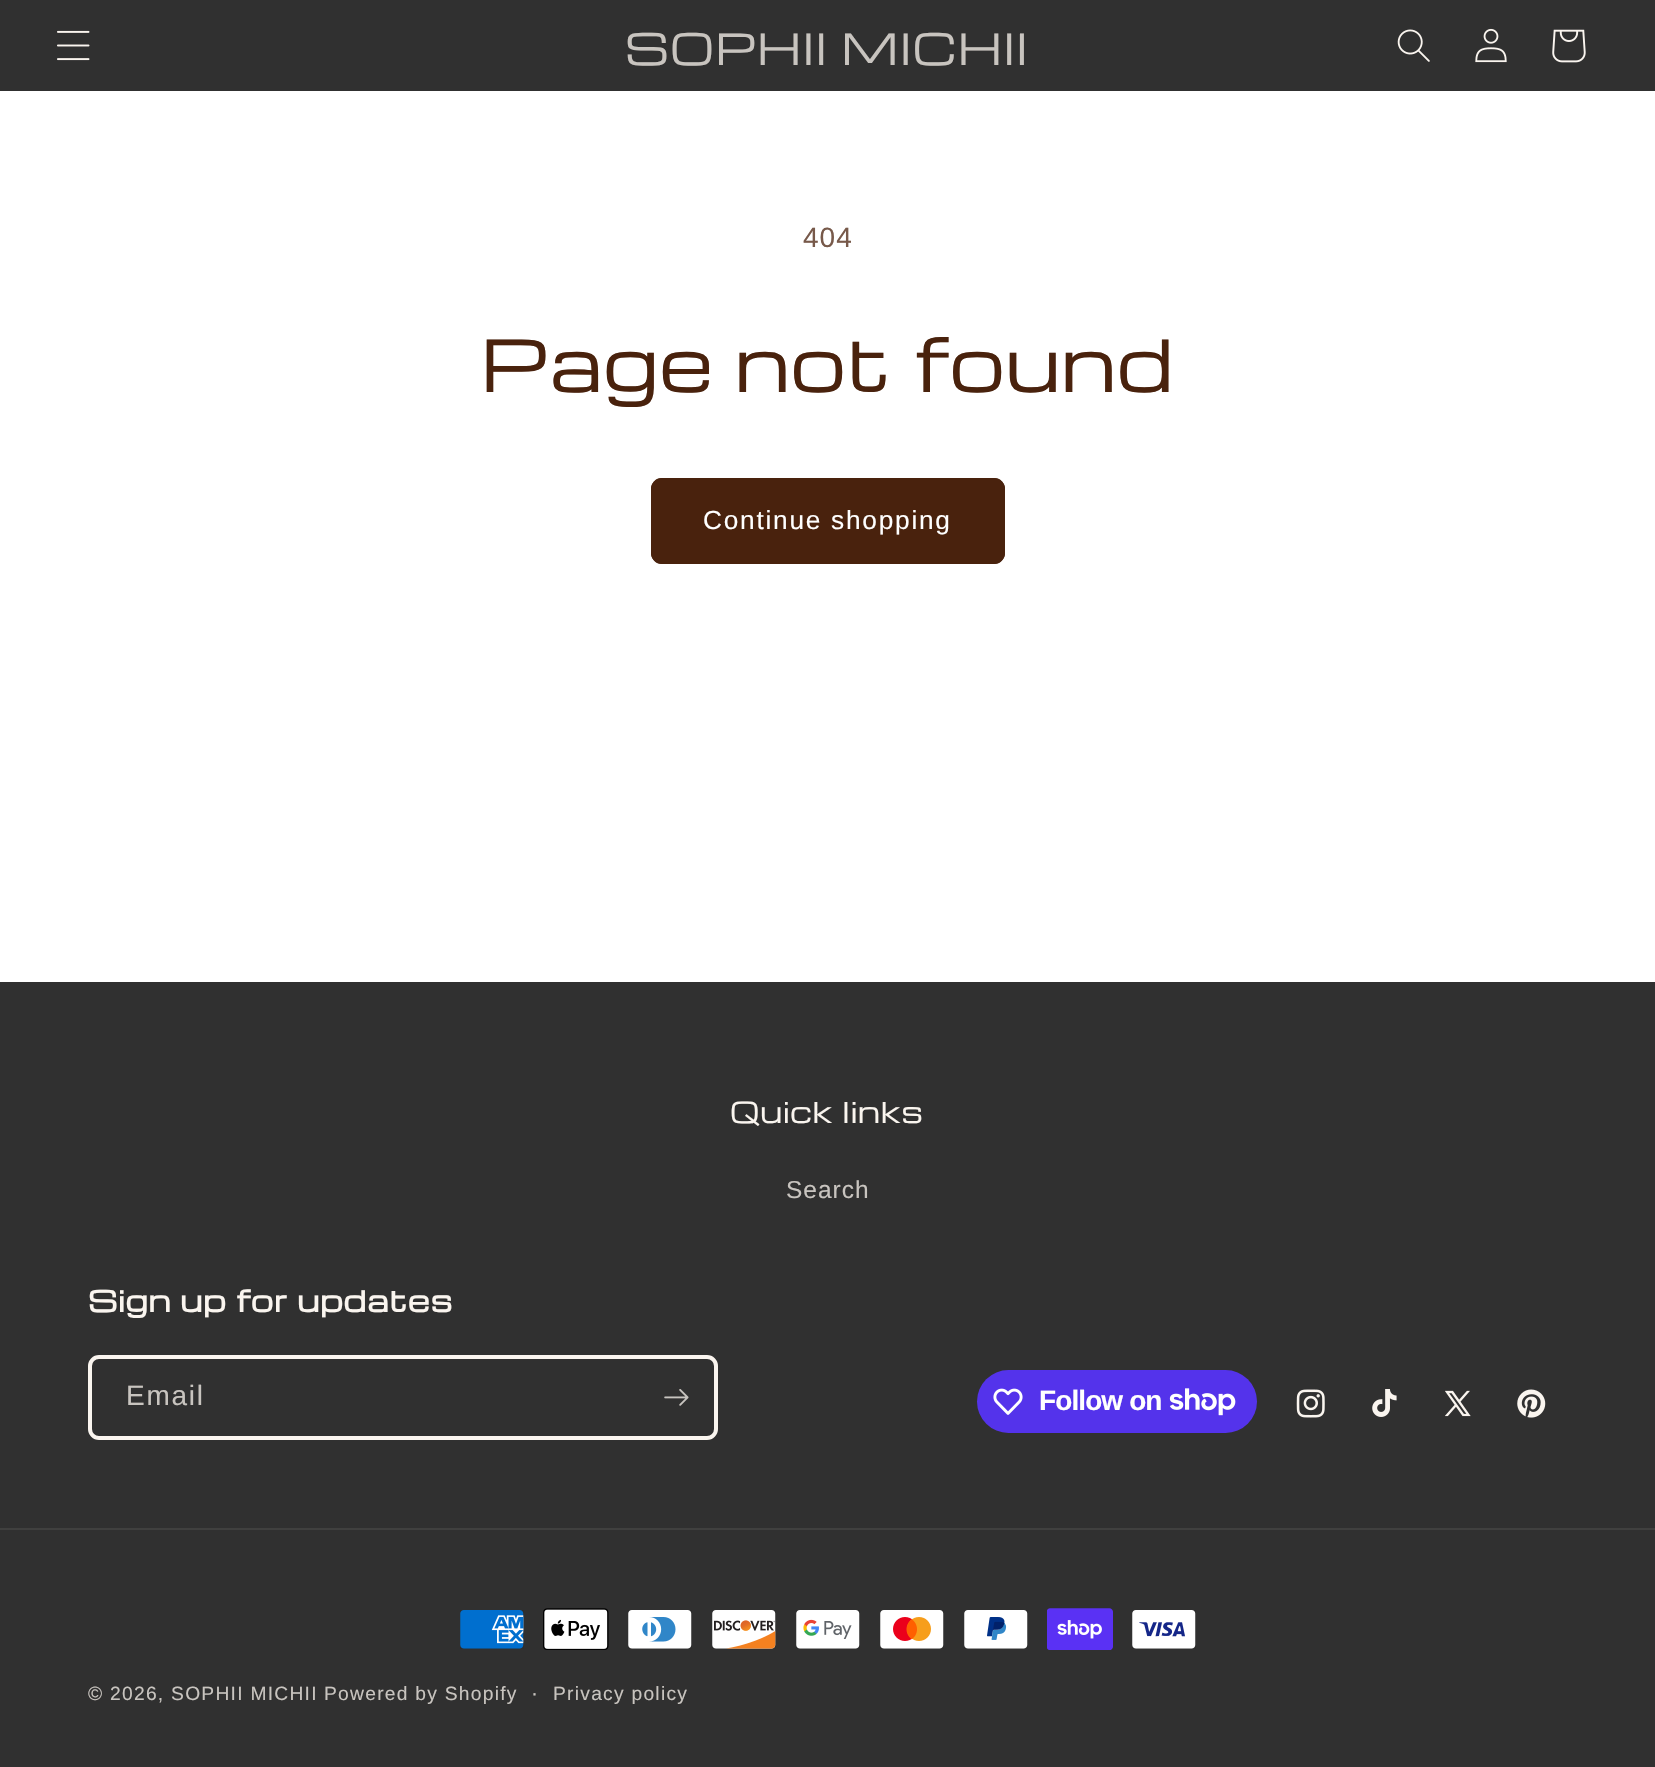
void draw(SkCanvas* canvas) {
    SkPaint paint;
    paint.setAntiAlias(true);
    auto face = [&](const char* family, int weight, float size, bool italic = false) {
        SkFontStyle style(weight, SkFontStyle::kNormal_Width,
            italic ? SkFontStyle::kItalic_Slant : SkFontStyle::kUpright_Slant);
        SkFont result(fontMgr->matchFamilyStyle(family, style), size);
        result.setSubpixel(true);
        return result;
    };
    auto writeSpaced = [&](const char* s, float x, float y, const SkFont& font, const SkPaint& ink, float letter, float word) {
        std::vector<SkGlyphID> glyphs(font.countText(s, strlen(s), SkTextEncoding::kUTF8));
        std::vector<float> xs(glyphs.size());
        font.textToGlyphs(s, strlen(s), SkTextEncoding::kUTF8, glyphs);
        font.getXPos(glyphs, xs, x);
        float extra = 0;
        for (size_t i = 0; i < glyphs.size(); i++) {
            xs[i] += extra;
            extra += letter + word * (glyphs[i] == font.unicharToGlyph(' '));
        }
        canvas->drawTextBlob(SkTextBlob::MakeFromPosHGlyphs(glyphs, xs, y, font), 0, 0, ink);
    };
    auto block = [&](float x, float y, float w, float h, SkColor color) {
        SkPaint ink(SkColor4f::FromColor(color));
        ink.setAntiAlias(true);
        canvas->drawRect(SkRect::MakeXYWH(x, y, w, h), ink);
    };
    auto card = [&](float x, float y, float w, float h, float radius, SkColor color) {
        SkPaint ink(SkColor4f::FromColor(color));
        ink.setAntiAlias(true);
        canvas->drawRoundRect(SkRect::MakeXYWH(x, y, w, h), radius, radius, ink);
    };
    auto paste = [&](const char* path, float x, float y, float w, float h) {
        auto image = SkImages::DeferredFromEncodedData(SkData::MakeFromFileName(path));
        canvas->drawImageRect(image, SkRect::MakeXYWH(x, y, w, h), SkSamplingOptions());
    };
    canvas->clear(SK_ColorWHITE);
    block(0, 0, 1655, 91, SkColorSetRGB(48, 48, 48));
    paste("pic1.png", 57, 30, 33, 31);
    auto kFont1 = face("Michroma", 400, 42);
    paint.setColor(SkColorSetRGB(200, 196, 191));
    writeSpaced("SOPHII MICHII", 625, 65, kFont1, paint, 1, 0);
    paste("pic2.png", 1397, 29, 33, 33);
    paste("pic3.png", 1475, 28, 32, 35);
    paste("pic4.png", 1552, 29, 34, 34);
    auto kFont2 = face("Liberation Sans", 400, 28);
    paint.setColor(SkColorSetRGB(119, 89, 74));
    writeSpaced("404", 803, 247, kFont2, paint, 1, 0);
    auto kFont3 = face("Michroma", 400, 70);
    paint.setColor(SkColorSetRGB(73, 34, 13));
    writeSpaced("Page not found", 480, 392, kFont3, paint, 1, 0);
    card(651, 478, 354, 86, 11, SkColorSetRGB(73, 34, 13));
    paint.setStyle(SkPaint::kStroke_Style);
    paint.setStrokeWidth(4);
    canvas->drawRoundRect(SkRect::MakeXYWH(653, 480, 350, 82), 9, 9, paint);
    auto kFont4 = face("Liberation Sans", 400, 26.25f);
    paint.setStyle(SkPaint::kFill_Style);
    paint.setColor(SK_ColorWHITE);
    writeSpaced("Continue shopping", 703, 529, kFont4, paint, 1.75f, 0);
    block(0, 982, 1655, 785, SkColorSetRGB(48, 48, 48));
    auto kFont5 = face("Michroma", 400, 28);
    paint.setColor(SkColorSetRGB(250, 245, 239));
    writeSpaced("Quick links", 730, 1123, kFont5, paint, 1, 0);
    auto kFont6 = face("Liberation Sans", 400, 24.5f);
    paint.setColor(SkColorSetRGB(200, 196, 191));
    writeSpaced("Search", 786, 1198, kFont6, paint, 1, 0);
    auto kFont7 = face("Michroma", 700, 28);
    paint.setColor(SkColorSetRGB(250, 245, 239));
    writeSpaced("Sign up for updates", 88, 1312, kFont7, paint, 1, 0);
    paint.setStyle(SkPaint::kStroke_Style);
    canvas->drawRoundRect(SkRect::MakeXYWH(90, 1357, 626, 81), 9, 9, paint);
    paint.setStyle(SkPaint::kFill_Style);
    paint.setColor(SkColorSetRGB(200, 196, 191));
    writeSpaced("Email", 126, 1405, kFont2, paint, 1.75f, 0);
    paste("pic5.png", 664, 1389, 25, 17);
    card(977, 1370, 280, 63, 31.5f, SkColorSetRGB(84, 51, 235));
    paste("pic6.png", 993, 1388, 30, 27);
    auto kFont8 = face("Liberation Sans", 700, 28);
    paint.setColor(SK_ColorWHITE);
    writeSpaced("Follow on", 1039, 1410, kFont8, paint, -0.9f, 0);
    paste("pic7.png", 1169, 1388, 67, 28);
    paste("pic8.png", 1296, 1389, 29, 29);
    paste("pic9.png", 1372, 1389, 25, 28);
    paste("pic10.png", 1445, 1390, 26, 27);
    paste("pic11.png", 1517, 1389, 29, 29);
    block(0, 1528, 1655, 2, SkColorSetRGB(64, 64, 63));
    paste("pic12.png", 460, 1610, 64, 39);
    paste("pic13.png", 543, 1608, 66, 42);
    paste("pic14.png", 628, 1610, 64, 39);
    paste("pic15.png", 712, 1610, 64, 39);
    paste("pic16.png", 796, 1610, 64, 39);
    paste("pic17.png", 880, 1610, 64, 39);
    paste("pic18.png", 964, 1610, 64, 39);
    paste("pic19.png", 1047, 1608, 66, 42);
    paste("pic20.png", 1132, 1610, 64, 39);
    auto kFont9 = face("Liberation Sans", 400, 19.25f);
    paint.setColor(SkColorSetRGB(200, 196, 191));
    writeSpaced("© 2026, SOPHII MICHII", 88, 1700, kFont9, paint, 1.25f, 0);
    writeSpaced("Powered by Shopify", 324, 1700, kFont9, paint, 1.25f, 0);
    auto kFont10 = face("Liberation Sans", 400, 21);
    writeSpaced("·", 531, 1700, kFont10, paint, 1.25f, 0);
    writeSpaced("Privacy policy", 553, 1700, kFont9, paint, 1.25f, 0);
}
